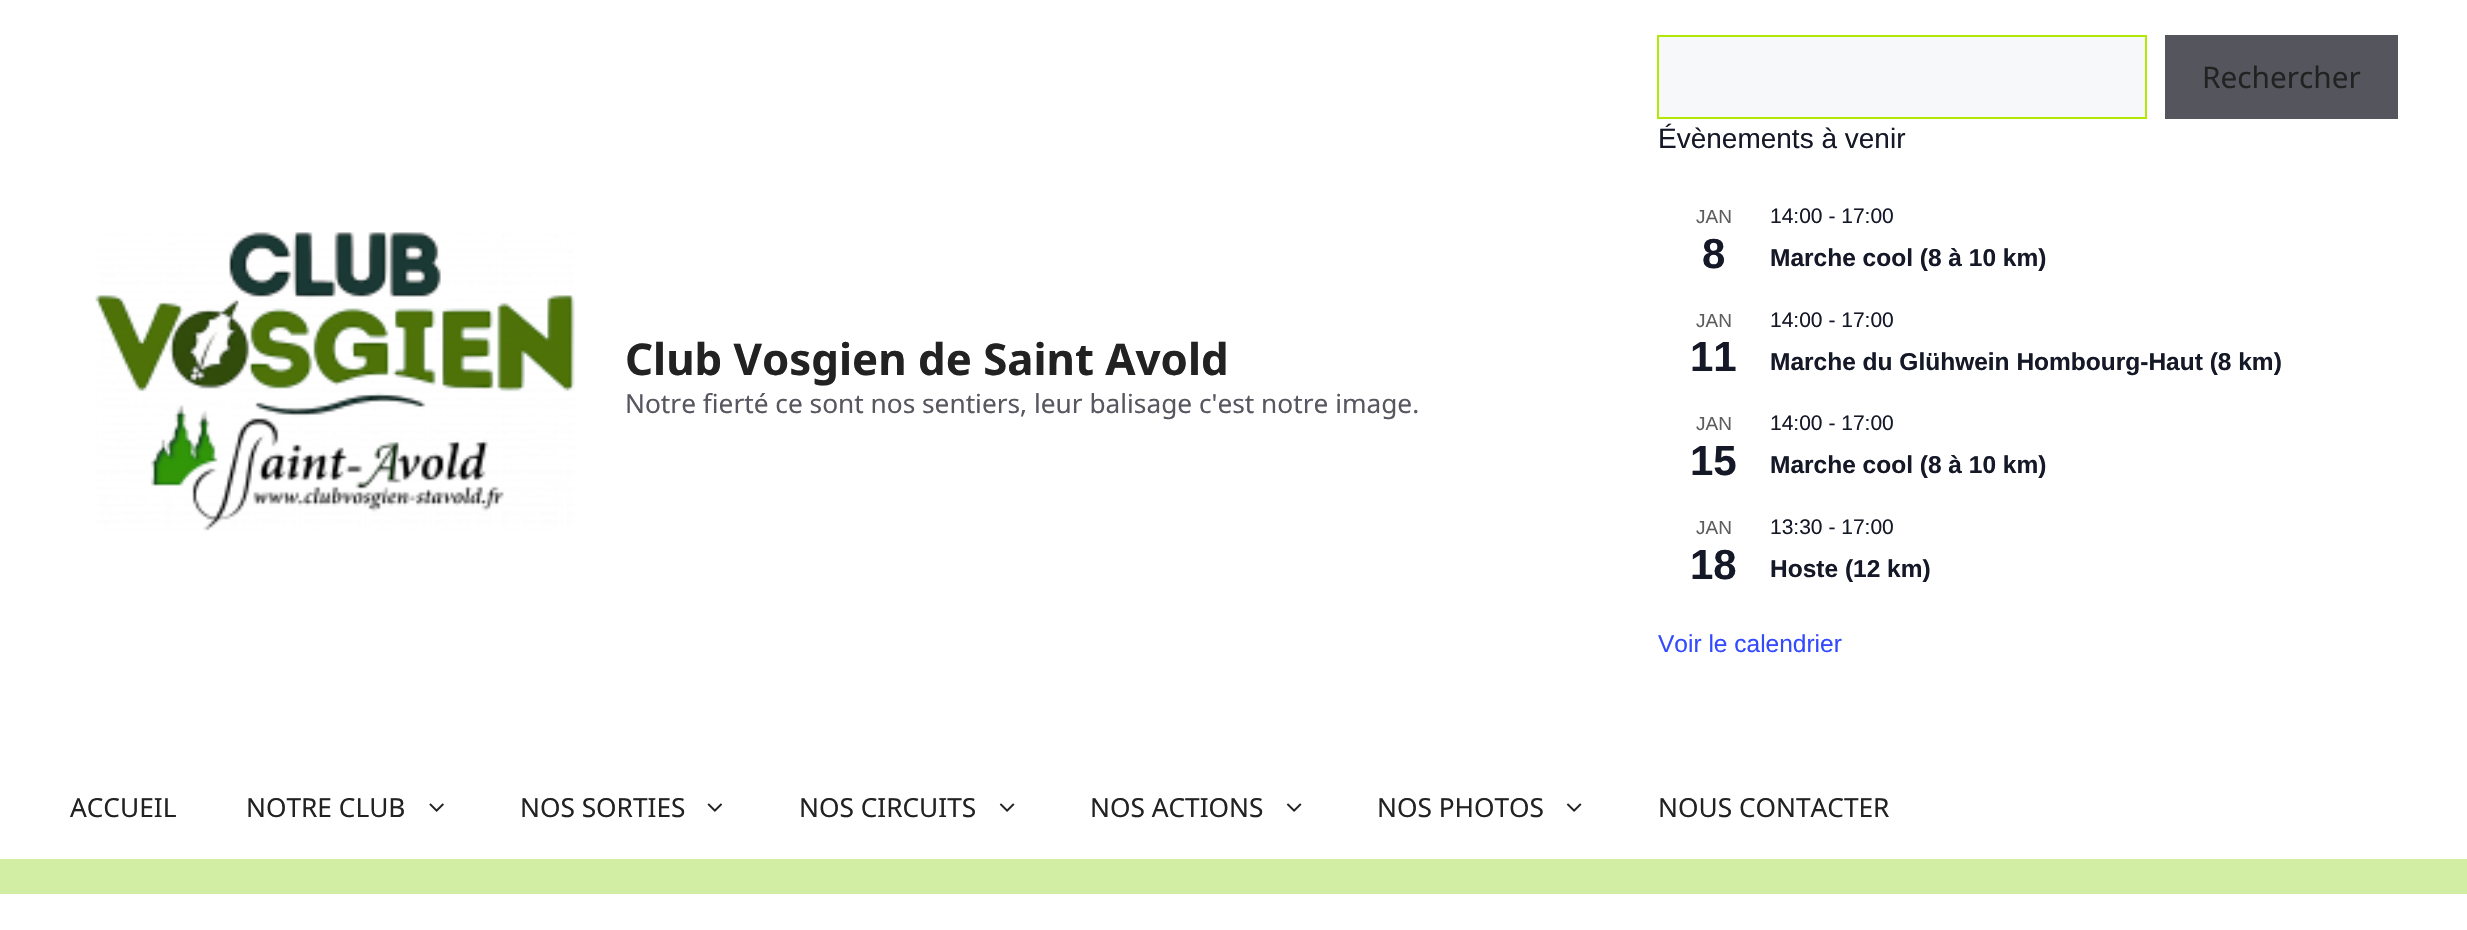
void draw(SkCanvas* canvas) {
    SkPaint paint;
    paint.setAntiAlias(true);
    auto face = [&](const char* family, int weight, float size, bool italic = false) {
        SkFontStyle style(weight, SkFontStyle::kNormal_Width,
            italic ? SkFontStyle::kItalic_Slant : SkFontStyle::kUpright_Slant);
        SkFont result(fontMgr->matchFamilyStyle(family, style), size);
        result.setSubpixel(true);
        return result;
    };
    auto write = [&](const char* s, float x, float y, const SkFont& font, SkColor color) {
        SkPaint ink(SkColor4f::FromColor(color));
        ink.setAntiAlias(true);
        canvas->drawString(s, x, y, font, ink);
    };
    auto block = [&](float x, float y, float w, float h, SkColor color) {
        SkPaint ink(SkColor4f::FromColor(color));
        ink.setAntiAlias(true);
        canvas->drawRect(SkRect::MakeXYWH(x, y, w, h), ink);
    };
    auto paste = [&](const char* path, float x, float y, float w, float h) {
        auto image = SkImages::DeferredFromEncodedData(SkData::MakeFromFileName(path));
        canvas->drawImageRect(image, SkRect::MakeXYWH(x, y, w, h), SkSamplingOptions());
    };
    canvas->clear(SkColorSetRGB(210, 237, 164));
    block(0, 0, 2467, 859, SK_ColorWHITE);
    paste("pic1.png", 95, 232, 480, 299);
    auto kFont1 = face("Noto Sans", 700, 43.75f);
    write("Club Vosgien de Saint Avold", 625, 375, kFont1, SkColorSetRGB(34, 34, 34));
    auto kFont2 = face("Noto Sans", 400, 26.25f);
    write("Notre fierté ce sont nos sentiers, leur balisage c'est notre image.", 625, 413, kFont2, SkColorSetRGB(87, 87, 96));
    paint.setColor(SkColorSetRGB(247, 248, 249));
    canvas->drawRect(SkRect::MakeXYWH(1658, 36, 488, 82), paint);
    paint.setStyle(SkPaint::kStroke_Style);
    paint.setStrokeWidth(2);
    paint.setColor(SkColorSetRGB(177, 232, 5));
    canvas->drawRect(SkRect::MakeXYWH(1658, 36, 488, 82), paint);
    block(2165, 35, 233, 84, SkColorSetRGB(85, 85, 94));
    auto kFont3 = face("Noto Sans", 400, 29.75f);
    write("Rechercher", 2202, 88, kFont3, SkColorSetRGB(34, 34, 34));
    auto kFont4 = face("Liberation Sans", 400, 28);
    write("Évènements à venir", 1658, 148, kFont4, SkColorSetRGB(20, 24, 39));
    auto kFont5 = face("Liberation Sans", 400, 19);
    write("JAN", 1696, 223, kFont5, SkColorSetRGB(93, 93, 93));
    auto kFont6 = face("Liberation Sans", 700, 42);
    write("8", 1702, 268, kFont6, SkColorSetRGB(20, 24, 39));
    auto kFont7 = face("Liberation Sans", 400, 21);
    write("14:00 - 17:00", 1770, 223, kFont7, SkColorSetRGB(20, 24, 39));
    auto kFont8 = face("Liberation Sans", 700, 24.5f);
    write("Marche cool (8 à 10 km)", 1770, 266, kFont8, SkColorSetRGB(20, 24, 39));
    write("JAN", 1696, 327, kFont5, SkColorSetRGB(93, 93, 93));
    write("11", 1690, 371, kFont6, SkColorSetRGB(20, 24, 39));
    write("14:00 - 17:00", 1770, 327, kFont7, SkColorSetRGB(20, 24, 39));
    write("Marche du Glühwein Hombourg-Haut (8 km)", 1770, 370, kFont8, SkColorSetRGB(20, 24, 39));
    write("JAN", 1696, 430, kFont5, SkColorSetRGB(93, 93, 93));
    write("15", 1690, 475, kFont6, SkColorSetRGB(20, 24, 39));
    write("14:00 - 17:00", 1770, 430, kFont7, SkColorSetRGB(20, 24, 39));
    write("Marche cool (8 à 10 km)", 1770, 473, kFont8, SkColorSetRGB(20, 24, 39));
    write("JAN", 1696, 534, kFont5, SkColorSetRGB(93, 93, 93));
    write("18", 1690, 579, kFont6, SkColorSetRGB(20, 24, 39));
    write("13:30 - 17:00", 1770, 534, kFont7, SkColorSetRGB(20, 24, 39));
    write("Hoste (12 km)", 1770, 577, kFont8, SkColorSetRGB(20, 24, 39));
    auto kFont9 = face("Liberation Sans", 400, 24.5f);
    write("Voir le calendrier", 1658, 652, kFont9, SkColorSetRGB(51, 74, 255));
    write("ACCUEIL", 70, 817, kFont2, SkColorSetRGB(34, 34, 34));
    write("NOTRE CLUB", 246, 817, kFont2, SkColorSetRGB(34, 34, 34));
    paste("pic2.png", 429, 803, 15, 9);
    write("NOS SORTIES", 520, 817, kFont2, SkColorSetRGB(34, 34, 34));
    paste("pic3.png", 707, 803, 16, 9);
    write("NOS CIRCUITS", 799, 817, kFont2, SkColorSetRGB(34, 34, 34));
    paste("pic4.png", 999, 803, 16, 9);
    write("NOS ACTIONS", 1090, 817, kFont2, SkColorSetRGB(34, 34, 34));
    paste("pic4.png", 1286, 803, 16, 9);
    write("NOS PHOTOS", 1377, 817, kFont2, SkColorSetRGB(34, 34, 34));
    paste("pic4.png", 1566, 803, 16, 9);
    write("NOUS CONTACTER", 1658, 817, kFont2, SkColorSetRGB(34, 34, 34));
    block(0, 894, 2467, 36, SK_ColorWHITE);
}
